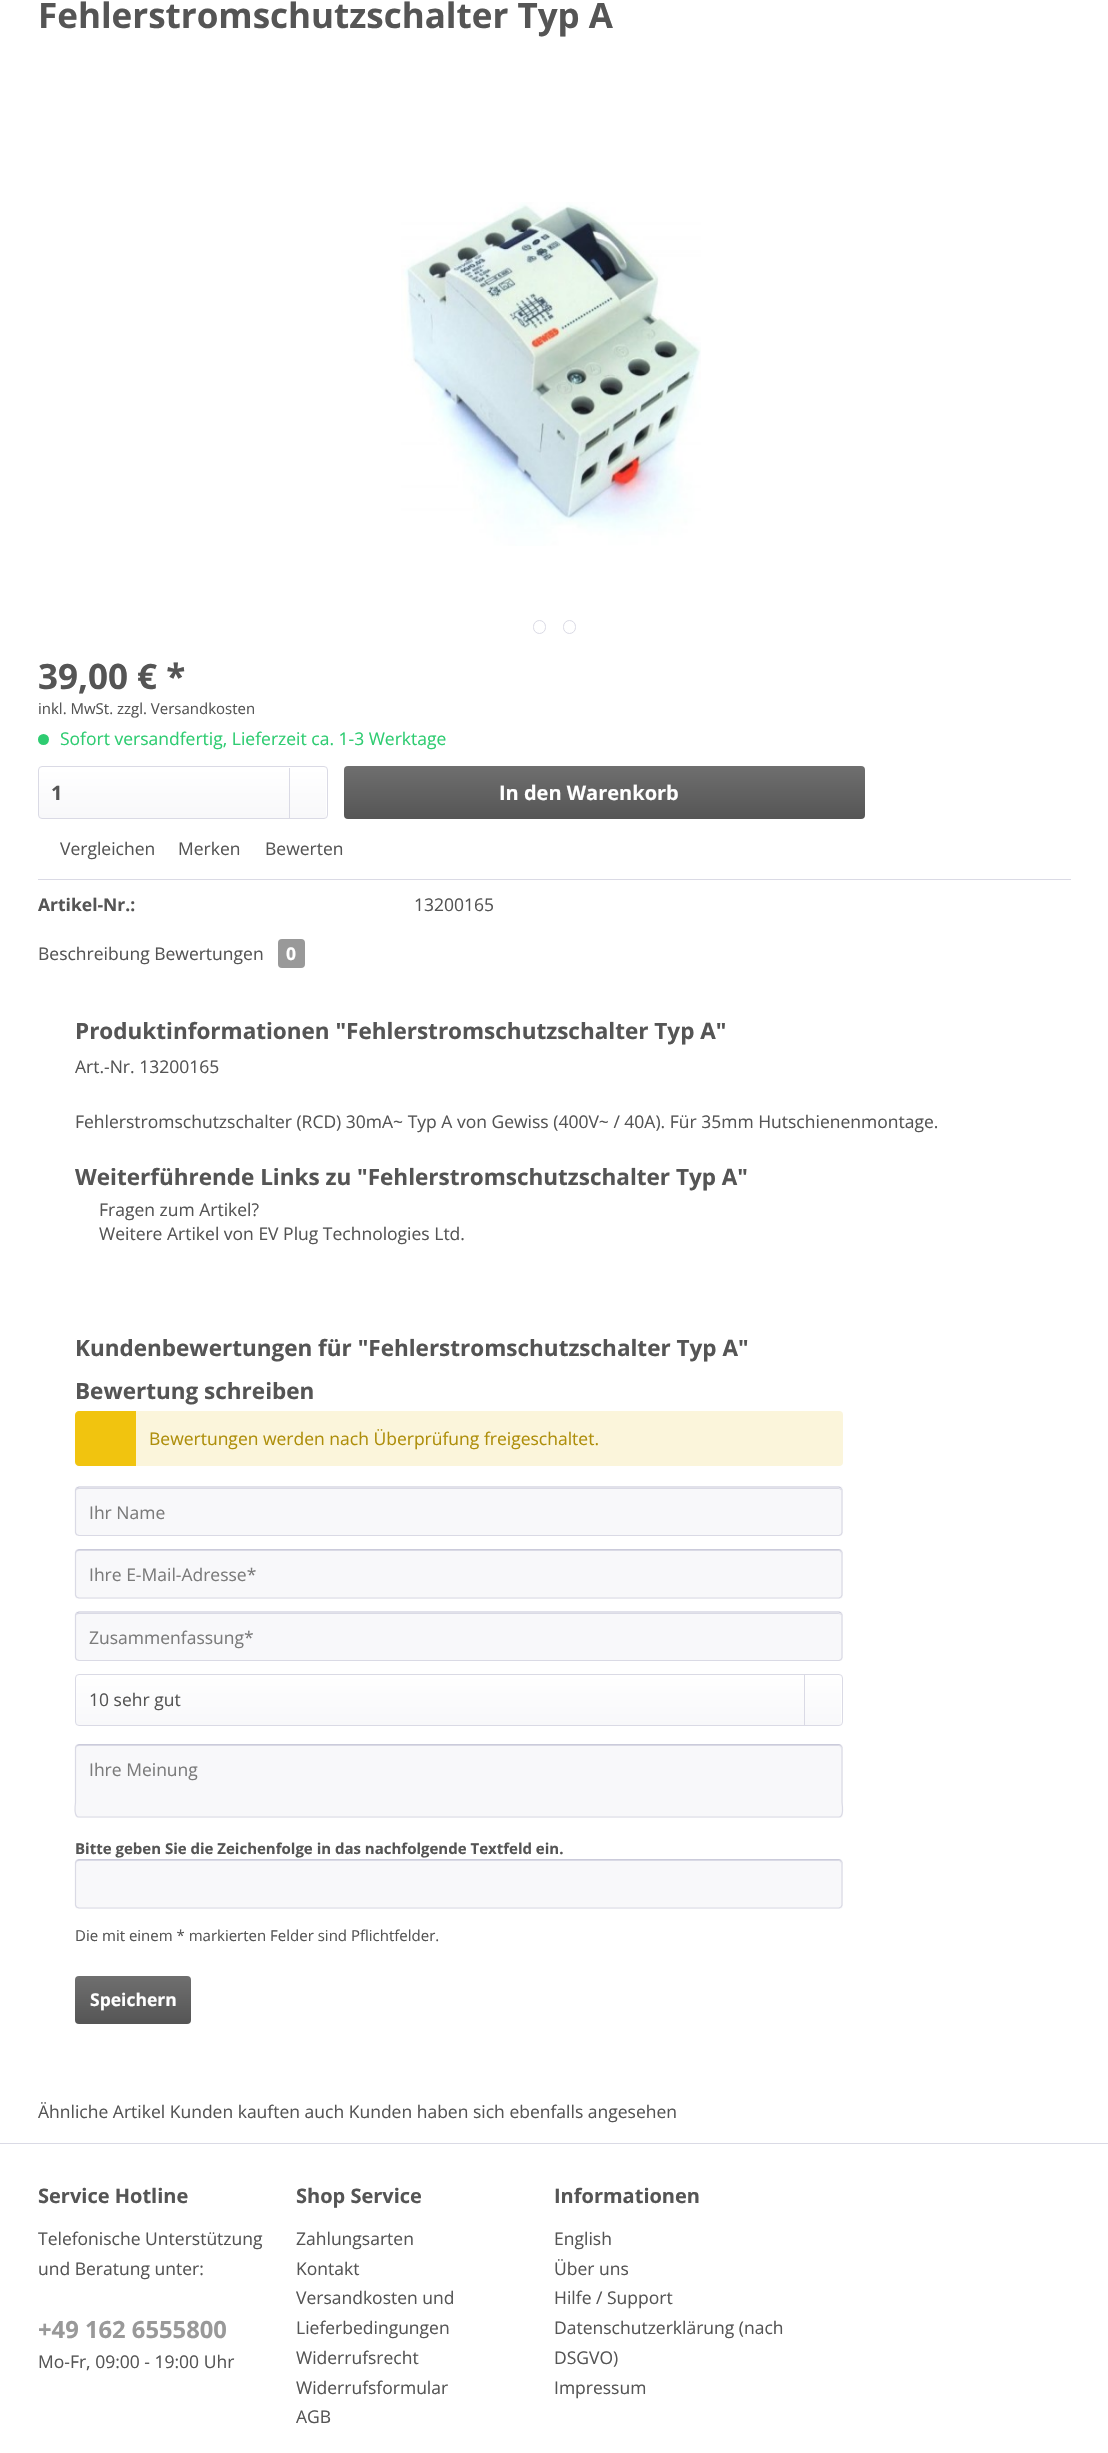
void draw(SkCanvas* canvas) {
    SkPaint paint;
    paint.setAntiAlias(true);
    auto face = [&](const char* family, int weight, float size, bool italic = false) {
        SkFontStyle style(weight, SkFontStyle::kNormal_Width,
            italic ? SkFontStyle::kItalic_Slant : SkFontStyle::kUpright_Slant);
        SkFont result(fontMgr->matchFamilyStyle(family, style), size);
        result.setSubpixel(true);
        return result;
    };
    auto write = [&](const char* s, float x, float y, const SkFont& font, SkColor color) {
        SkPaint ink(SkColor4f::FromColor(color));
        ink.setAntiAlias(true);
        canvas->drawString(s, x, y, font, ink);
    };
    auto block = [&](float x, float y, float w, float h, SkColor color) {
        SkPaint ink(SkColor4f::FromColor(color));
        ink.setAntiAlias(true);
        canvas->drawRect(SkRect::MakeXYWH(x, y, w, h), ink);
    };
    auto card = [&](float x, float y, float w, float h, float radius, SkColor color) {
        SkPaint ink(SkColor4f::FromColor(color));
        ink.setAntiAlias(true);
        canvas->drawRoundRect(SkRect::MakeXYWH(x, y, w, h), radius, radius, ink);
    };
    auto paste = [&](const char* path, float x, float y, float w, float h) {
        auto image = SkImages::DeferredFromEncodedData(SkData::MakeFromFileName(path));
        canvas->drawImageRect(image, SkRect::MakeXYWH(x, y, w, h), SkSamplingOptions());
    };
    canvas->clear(SK_ColorWHITE);
    auto kFont1 = face("Open Sans", 700, 35);
    write("Fehlerstromschutzschalter Typ A", 38, 28, kFont1, SkColorSetRGB(85, 85, 85));
    paste("pic1.png", 401, 202, 300, 344);
    paint.setStyle(SkPaint::kStroke_Style);
    paint.setStrokeWidth(1);
    paint.setColor(SkColorSetRGB(218, 218, 229));
    canvas->drawRoundRect(SkRect::MakeXYWH(533.5f, 620.5f, 12, 13), 6, 6, paint);
    canvas->drawRoundRect(SkRect::MakeXYWH(563.5f, 620.5f, 12, 13), 6, 6, paint);
    write("39,00 € *", 38, 689, kFont1, SkColorSetRGB(85, 85, 85));
    auto kFont2 = face("Open Sans", 400, 15);
    write("inkl. MwSt. zzgl. Versandkosten", 38, 714, kFont2, SkColorSetRGB(85, 85, 85));
    paint.setStyle(SkPaint::kFill_Style);
    paint.setColor(SkColorSetRGB(46, 204, 113));
    canvas->drawCircle(43.5f, 739.5f, 5.5f, paint);
    auto kFont3 = face("Open Sans", 400, 17.5f);
    write("Sofort versandfertig, Lieferzeit ca. 1-3 Werktage", 60, 745, kFont3, SkColorSetRGB(46, 204, 113));
    {
        const SkColor colors[] = {SK_ColorWHITE, SkColorSetRGB(248, 248, 250)};
        const float stops[] = {0, 1};
        const SkPoint ends[] = {{183, 768}, {183, 818}};
        paint.setShader(SkGradientShader::MakeLinear(ends, colors, stops, 2, SkTileMode::kClamp));
        paint.setAlpha(255);
    }
    canvas->drawRoundRect(SkRect::MakeXYWH(39, 768, 287, 50), 2.5f, 2.5f, paint);
    paint.setStyle(SkPaint::kStroke_Style);
    paint.setShader(nullptr);
    paint.setColor(SkColorSetRGB(218, 218, 229));
    canvas->drawRoundRect(SkRect::MakeXYWH(38.5f, 766.5f, 289, 52), 3.5f, 3.5f, paint);
    auto kFont4 = face("Open Sans", 700, 20);
    write("1", 51, 800, kFont4, SkColorSetRGB(85, 85, 85));
    block(289, 768, 1, 50, SkColorSetRGB(218, 218, 229));
    paint.setStyle(SkPaint::kFill_Style);
    {
        const SkColor colors[] = {SkColorSetRGB(111, 111, 111), SkColorSetRGB(85, 85, 85)};
        const float stops[] = {0, 1};
        const SkPoint ends[] = {{604, 766}, {604, 819}};
        paint.setShader(SkGradientShader::MakeLinear(ends, colors, stops, 2, SkTileMode::kClamp));
        paint.setAlpha(255);
    }
    canvas->drawRoundRect(SkRect::MakeXYWH(344, 766, 521, 53), 4, 4, paint);
    write("In den Warenkorb", 499, 800, kFont4, SK_ColorWHITE);
    block(38, 879, 1033, 1, SkColorSetRGB(218, 218, 229));
    write("Vergleichen", 60, 855, kFont3, SkColorSetRGB(85, 85, 85));
    write("Merken", 178, 855, kFont3, SkColorSetRGB(85, 85, 85));
    write("Bewerten", 265, 855, kFont3, SkColorSetRGB(85, 85, 85));
    auto kFont5 = face("Open Sans", 700, 17.5f);
    write("Artikel-Nr.:", 38, 911, kFont5, SkColorSetRGB(85, 85, 85));
    write("13200165", 414, 911, kFont3, SkColorSetRGB(85, 85, 85));
    write("Beschreibung Bewertungen", 38, 960, kFont3, SkColorSetRGB(85, 85, 85));
    card(278, 939, 27, 29, 4, SkColorSetRGB(153, 153, 153));
    write("0", 286, 960, kFont5, SK_ColorWHITE);
    auto kFont6 = face("Open Sans", 700, 22.5f);
    write("Produktinformationen \"Fehlerstromschutzschalter Typ A\"", 75, 1039, kFont6, SkColorSetRGB(85, 85, 85));
    write("Art.-Nr. 13200165", 75, 1073, kFont3, SkColorSetRGB(85, 85, 85));
    write("Fehlerstromschutzschalter (RCD) 30mA~ Typ A von Gewiss (400V~ / 40A). Für 35mm Hutschienenmontage.", 75, 1128, kFont3, SkColorSetRGB(85, 85, 85));
    write("Weiterführende Links zu \"Fehlerstromschutzschalter Typ A\"", 75, 1185, kFont6, SkColorSetRGB(85, 85, 85));
    write("Fragen zum Artikel?", 99, 1216, kFont3, SkColorSetRGB(85, 85, 85));
    write("Weitere Artikel von EV Plug Technologies Ltd.", 99, 1240, kFont3, SkColorSetRGB(85, 85, 85));
    write("Kundenbewertungen für \"Fehlerstromschutzschalter Typ A\"", 75, 1356, kFont6, SkColorSetRGB(85, 85, 85));
    write("Bewertung schreiben", 75, 1399, kFont6, SkColorSetRGB(85, 85, 85));
    card(75, 1411, 768, 55, 4, SkColorSetRGB(251, 245, 219));
    paint.setShader(nullptr);
    paint.setColor(SkColorSetRGB(241, 196, 15));
    canvas->drawPath(SkPathBuilder().moveTo(79, 1411).lineTo(136, 1411).lineTo(136, 1466).lineTo(79, 1466).cubicTo(77, 1466, 75, 1464, 75, 1462).lineTo(75, 1415).cubicTo(75, 1413, 77, 1411, 79, 1411).close().detach(), paint);
    write("Bewertungen werden nach Überprüfung freigeschaltet.", 149, 1445, kFont3, SkColorSetRGB(174, 142, 10));
    card(75, 1486, 768, 50, 4, SkColorSetRGB(248, 248, 250));
    paint.setColor(SkColorSetRGB(218, 218, 229));
    canvas->drawPath(SkPathBuilder().moveTo(79, 1489).lineTo(839, 1489).cubicTo(840, 1489, 841, 1490, 841, 1491).lineTo(841, 1490).cubicTo(841, 1489, 840, 1488, 838, 1488).lineTo(78, 1488).cubicTo(77, 1488, 76, 1489, 76, 1490).lineTo(76, 1491).cubicTo(76, 1490, 77, 1489, 79, 1489).close().detach(), paint);
    paint.setStyle(SkPaint::kStroke_Style);
    paint.setStrokeWidth(1.2f);
    paint.setColor(SkColorSetRGB(203, 203, 219));
    canvas->drawPath(SkPathBuilder().moveTo(76.5f, 1488).lineTo(79, 1487).lineTo(839, 1487).lineTo(841, 1488).detach(), paint);
    paint.setColor(SkColorSetRGB(218, 218, 229));
    canvas->drawPath(SkPathBuilder().moveTo(841, 1488).lineTo(842, 1490).lineTo(842, 1532.5f).lineTo(841, 1534.5f).lineTo(839, 1535.5f).lineTo(79, 1535.5f).lineTo(76.5f, 1534.5f).lineTo(75.5f, 1532.5f).lineTo(75.5f, 1490).lineTo(76.5f, 1488).detach(), paint);
    write("Ihr Name", 89, 1519, kFont3, SkColorSetRGB(123, 123, 123));
    card(75, 1549, 768, 50, 4, SkColorSetRGB(248, 248, 250));
    paint.setStyle(SkPaint::kFill_Style);
    canvas->drawPath(SkPathBuilder().moveTo(79, 1551).lineTo(839, 1551).cubicTo(840, 1551, 841, 1552, 841, 1554).lineTo(841, 1552).cubicTo(841, 1551, 840, 1550, 838, 1550).lineTo(78, 1550).cubicTo(77, 1550, 76, 1551, 76, 1552).lineTo(76, 1554).cubicTo(76, 1552, 77, 1551, 79, 1551).close().detach(), paint);
    paint.setStyle(SkPaint::kStroke_Style);
    paint.setColor(SkColorSetRGB(203, 203, 219));
    canvas->drawPath(SkPathBuilder().moveTo(76.5f, 1550.5f).lineTo(79, 1549.5f).lineTo(839, 1549.5f).lineTo(841, 1550.5f).detach(), paint);
    paint.setColor(SkColorSetRGB(218, 218, 229));
    canvas->drawPath(SkPathBuilder().moveTo(841, 1550.5f).lineTo(842, 1552.5f).lineTo(842, 1595).lineTo(841, 1597).lineTo(839, 1598).lineTo(79, 1598).lineTo(76.5f, 1597).lineTo(75.5f, 1595).lineTo(75.5f, 1552.5f).lineTo(76.5f, 1550.5f).detach(), paint);
    write("Ihre E-Mail-Adresse*", 89, 1581, kFont3, SkColorSetRGB(123, 123, 123));
    card(75, 1611, 768, 50, 4, SkColorSetRGB(248, 248, 250));
    paint.setStyle(SkPaint::kFill_Style);
    canvas->drawPath(SkPathBuilder().moveTo(79, 1614).lineTo(839, 1614).cubicTo(840, 1614, 841, 1615, 841, 1616).cubicTo(841, 1614, 840, 1613, 838, 1613).lineTo(78, 1613).cubicTo(77, 1613, 76, 1614, 76, 1616).cubicTo(76, 1615, 77, 1614, 79, 1614).close().detach(), paint);
    paint.setStyle(SkPaint::kStroke_Style);
    paint.setColor(SkColorSetRGB(203, 203, 219));
    canvas->drawPath(SkPathBuilder().moveTo(76.5f, 1613).lineTo(79, 1612).lineTo(839, 1612).lineTo(841, 1613).detach(), paint);
    paint.setColor(SkColorSetRGB(218, 218, 229));
    canvas->drawPath(SkPathBuilder().moveTo(841, 1613).lineTo(842, 1615).lineTo(842, 1657.5f).lineTo(841, 1659.5f).lineTo(839, 1660.5f).lineTo(79, 1660.5f).lineTo(76.5f, 1659.5f).lineTo(75.5f, 1657.5f).lineTo(75.5f, 1615).lineTo(76.5f, 1613).detach(), paint);
    write("Zusammenfassung*", 89, 1644, kFont3, SkColorSetRGB(123, 123, 123));
    paint.setStyle(SkPaint::kFill_Style);
    {
        const SkColor colors[] = {SK_ColorWHITE, SkColorSetRGB(248, 248, 250)};
        const float stops[] = {0, 1};
        const SkPoint ends[] = {{459, 1675}, {459, 1725}};
        paint.setShader(SkGradientShader::MakeLinear(ends, colors, stops, 2, SkTileMode::kClamp));
        paint.setAlpha(255);
    }
    canvas->drawRoundRect(SkRect::MakeXYWH(76, 1675, 765, 50), 2.5f, 2.5f, paint);
    paint.setStyle(SkPaint::kStroke_Style);
    paint.setStrokeWidth(1);
    paint.setShader(nullptr);
    paint.setColor(SkColorSetRGB(218, 218, 229));
    canvas->drawRoundRect(SkRect::MakeXYWH(75.5f, 1674.5f, 767, 51), 3.5f, 3.5f, paint);
    write("10 sehr gut", 89, 1706, kFont3, SkColorSetRGB(85, 85, 85));
    block(804, 1675, 1, 50, SkColorSetRGB(218, 218, 229));
    card(75, 1744, 768, 74, 4, SkColorSetRGB(248, 248, 250));
    paint.setStyle(SkPaint::kFill_Style);
    canvas->drawPath(SkPathBuilder().moveTo(79, 1746).lineTo(839, 1746).cubicTo(840, 1746, 841, 1747, 841, 1749).lineTo(841, 1748).cubicTo(841, 1746, 840, 1745, 838, 1745).lineTo(78, 1745).cubicTo(77, 1745, 76, 1746, 76, 1748).lineTo(76, 1749).cubicTo(76, 1747, 77, 1746, 79, 1746).close().detach(), paint);
    paint.setStyle(SkPaint::kStroke_Style);
    paint.setStrokeWidth(1.2f);
    paint.setColor(SkColorSetRGB(203, 203, 219));
    canvas->drawPath(SkPathBuilder().moveTo(76.5f, 1745.5f).lineTo(79, 1744.5f).lineTo(839, 1744.5f).lineTo(841, 1745.5f).detach(), paint);
    paint.setColor(SkColorSetRGB(218, 218, 229));
    canvas->drawPath(SkPathBuilder().moveTo(841, 1745.5f).lineTo(842, 1747.5f).lineTo(842, 1802.5f).cubicTo(842, 1803, 844.5f, 1817, 839, 1817).lineTo(79, 1817).cubicTo(73, 1817, 75.5f, 1803, 75.5f, 1802.5f).lineTo(75.5f, 1747.5f).lineTo(76.5f, 1745.5f).detach(), paint);
    write("Ihre Meinung", 89, 1776, kFont3, SkColorSetRGB(123, 123, 123));
    auto kFont7 = face("Open Sans", 700, 15);
    write("Bitte geben Sie die Zeichenfolge in das nachfolgende Textfeld ein.", 75, 1854, kFont7, SkColorSetRGB(85, 85, 85));
    card(75, 1859, 768, 50, 4, SkColorSetRGB(248, 248, 250));
    paint.setStyle(SkPaint::kFill_Style);
    canvas->drawPath(SkPathBuilder().moveTo(79, 1861).lineTo(839, 1861).cubicTo(840, 1861, 841, 1862, 841, 1864).lineTo(841, 1862).cubicTo(841, 1861, 840, 1860, 838, 1860).lineTo(78, 1860).cubicTo(77, 1860, 76, 1861, 76, 1862).lineTo(76, 1864).cubicTo(76, 1862, 77, 1861, 79, 1861).close().detach(), paint);
    paint.setStyle(SkPaint::kStroke_Style);
    paint.setColor(SkColorSetRGB(203, 203, 219));
    canvas->drawPath(SkPathBuilder().moveTo(76.5f, 1860.5f).lineTo(79, 1859.5f).lineTo(839, 1859.5f).lineTo(841, 1860.5f).detach(), paint);
    paint.setColor(SkColorSetRGB(218, 218, 229));
    canvas->drawPath(SkPathBuilder().moveTo(841, 1860.5f).lineTo(842, 1862.5f).lineTo(842, 1905).lineTo(841, 1907).lineTo(839, 1908).lineTo(79, 1908).lineTo(76.5f, 1907).lineTo(75.5f, 1905).lineTo(75.5f, 1862.5f).lineTo(76.5f, 1860.5f).detach(), paint);
    write("Die mit einem * markierten Felder sind Pflichtfelder.", 75, 1941, kFont2, SkColorSetRGB(85, 85, 85));
    paint.setStyle(SkPaint::kFill_Style);
    {
        const SkColor colors[] = {SkColorSetRGB(111, 111, 111), SkColorSetRGB(85, 85, 85)};
        const float stops[] = {0, 1};
        const SkPoint ends[] = {{133, 1976}, {133, 2024}};
        paint.setShader(SkGradientShader::MakeLinear(ends, colors, stops, 2, SkTileMode::kClamp));
        paint.setAlpha(255);
    }
    canvas->drawRoundRect(SkRect::MakeXYWH(75, 1976, 116, 48), 4, 4, paint);
    write("Speichern", 90, 2006, kFont5, SK_ColorWHITE);
    write("Ähnliche Artikel Kunden kauften auch Kunden haben sich ebenfalls angesehen", 38, 2118, kFont3, SkColorSetRGB(85, 85, 85));
    block(0, 2143, 1108, 1, SkColorSetRGB(218, 218, 229));
    write("Service Hotline", 38, 2203, kFont4, SkColorSetRGB(85, 85, 85));
    write("Telefonische Unterstützung", 38, 2245, kFont3, SkColorSetRGB(85, 85, 85));
    write("und Beratung unter:", 38, 2275, kFont3, SkColorSetRGB(85, 85, 85));
    auto kFont8 = face("Open Sans", 700, 23.75f);
    write("+49 162 6555800", 38, 2338, kFont8, SkColorSetRGB(153, 153, 153));
    write("Mo-Fr, 09:00 - 19:00 Uhr", 38, 2368, kFont3, SkColorSetRGB(85, 85, 85));
    write("Shop Service", 296, 2203, kFont4, SkColorSetRGB(85, 85, 85));
    write("Zahlungsarten", 296, 2245, kFont3, SkColorSetRGB(85, 85, 85));
    write("Kontakt", 296, 2275, kFont3, SkColorSetRGB(85, 85, 85));
    write("Versandkosten und", 296, 2304, kFont3, SkColorSetRGB(85, 85, 85));
    write("Lieferbedingungen", 296, 2334, kFont3, SkColorSetRGB(85, 85, 85));
    write("Widerrufsrecht", 296, 2364, kFont3, SkColorSetRGB(85, 85, 85));
    write("Widerrufsformular", 296, 2394, kFont3, SkColorSetRGB(85, 85, 85));
    write("AGB", 296, 2423, kFont3, SkColorSetRGB(85, 85, 85));
    write("Informationen", 554, 2203, kFont4, SkColorSetRGB(85, 85, 85));
    write("English", 554, 2245, kFont3, SkColorSetRGB(85, 85, 85));
    write("Über uns", 554, 2275, kFont3, SkColorSetRGB(85, 85, 85));
    write("Hilfe / Support", 554, 2304, kFont3, SkColorSetRGB(85, 85, 85));
    write("Datenschutzerklärung (nach", 554, 2334, kFont3, SkColorSetRGB(85, 85, 85));
    write("DSGVO)", 554, 2364, kFont3, SkColorSetRGB(85, 85, 85));
    write("Impressum", 554, 2394, kFont3, SkColorSetRGB(85, 85, 85));
}
